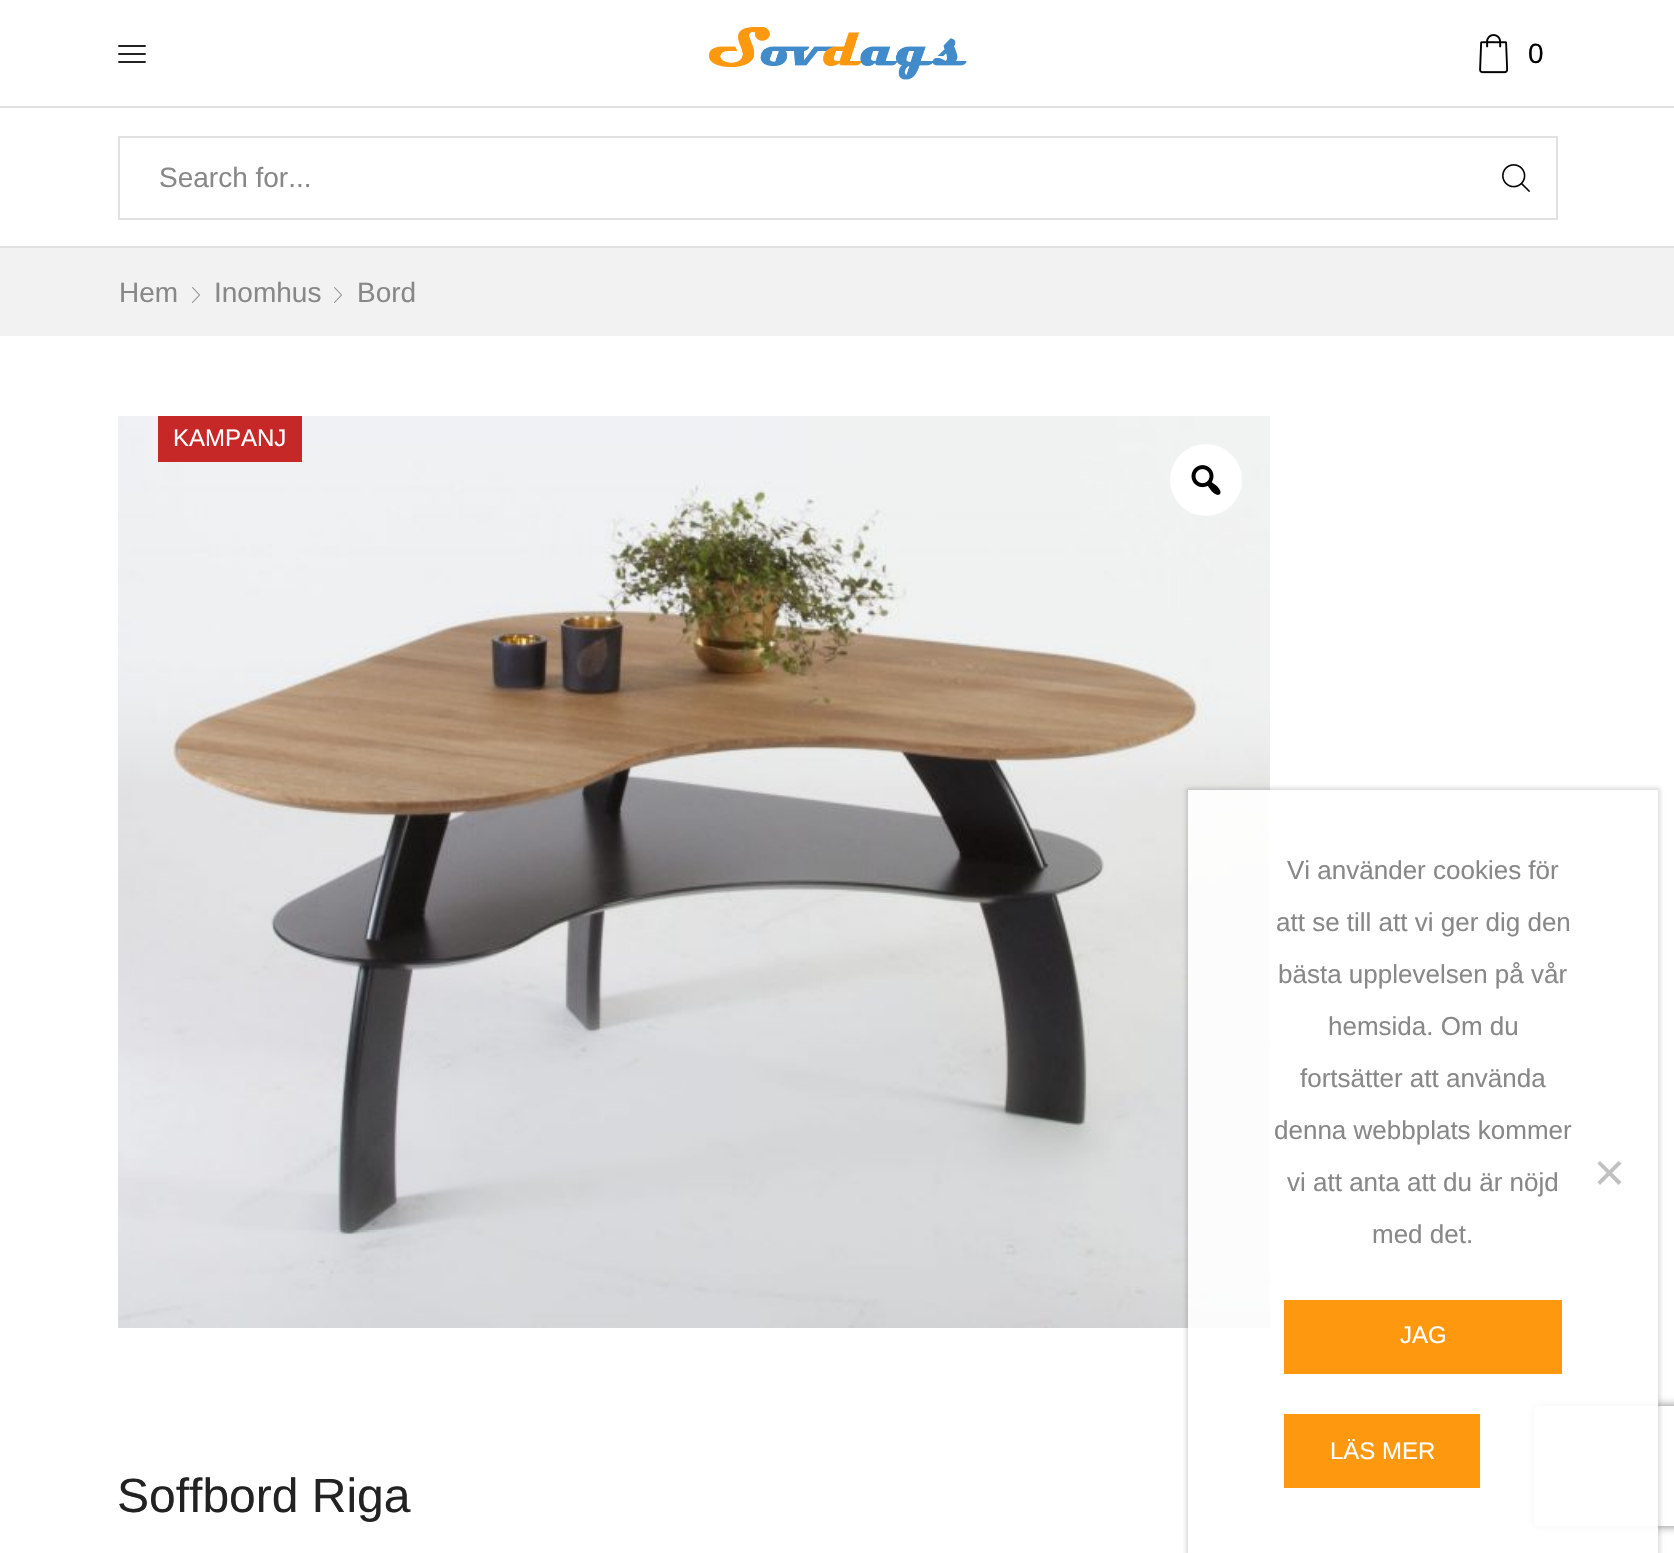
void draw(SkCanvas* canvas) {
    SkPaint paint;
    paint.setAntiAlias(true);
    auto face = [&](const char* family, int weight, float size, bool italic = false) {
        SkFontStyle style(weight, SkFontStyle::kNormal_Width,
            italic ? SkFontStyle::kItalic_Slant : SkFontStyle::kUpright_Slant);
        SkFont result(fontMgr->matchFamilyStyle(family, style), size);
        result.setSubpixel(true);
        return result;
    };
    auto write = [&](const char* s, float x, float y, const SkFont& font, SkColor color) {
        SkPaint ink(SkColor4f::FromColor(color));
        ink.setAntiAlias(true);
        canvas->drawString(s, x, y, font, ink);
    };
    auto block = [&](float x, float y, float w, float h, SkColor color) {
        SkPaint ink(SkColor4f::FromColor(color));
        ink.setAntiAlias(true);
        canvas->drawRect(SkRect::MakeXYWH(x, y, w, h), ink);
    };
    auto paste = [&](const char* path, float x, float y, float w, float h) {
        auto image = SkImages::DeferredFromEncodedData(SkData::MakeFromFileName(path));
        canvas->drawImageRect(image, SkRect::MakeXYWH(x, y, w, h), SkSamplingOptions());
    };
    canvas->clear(SK_ColorWHITE);
    block(0, 106, 1674, 2, SkColorSetRGB(225, 225, 225));
    paste("pic1.png", 118, 45, 28, 18);
    paste("pic2.png", 709, 27, 258, 53);
    paste("pic3.png", 1479, 34, 30, 40);
    auto kFont1 = face("Liberation Sans", 400, 28);
    write("0", 1528, 63, kFont1, SK_ColorBLACK);
    block(0, 246, 1674, 2, SkColorSetRGB(225, 225, 225));
    paint.setStyle(SkPaint::kStroke_Style);
    paint.setStrokeWidth(2);
    paint.setColor(SkColorSetRGB(225, 225, 225));
    canvas->drawRect(SkRect::MakeXYWH(119, 137, 1438, 82), paint);
    write("Search for...", 159, 187, kFont1, SkColorSetRGB(136, 136, 136));
    paste("pic4.png", 1502, 164, 28, 28);
    block(0, 248, 1674, 88, SkColorSetRGB(242, 242, 242));
    write("Hem", 119, 302, kFont1, SkColorSetRGB(136, 136, 136));
    paste("pic5.png", 192, 287, 8, 16);
    write("Inomhus", 214, 302, kFont1, SkColorSetRGB(136, 136, 136));
    paste("pic5.png", 334, 287, 8, 16);
    write("Bord", 357, 302, kFont1, SkColorSetRGB(136, 136, 136));
    paste("pic6.png", 118, 416, 1152, 912);
    paint.setStyle(SkPaint::kFill_Style);
    paint.setColor(SK_ColorWHITE);
    canvas->drawCircle(1206, 480, 36, paint);
    paste("pic7.png", 1191, 465, 30, 30);
    block(158, 416, 144, 46, SkColorSetRGB(198, 40, 40));
    auto kFont2 = face("Liberation Sans", 400, 24);
    write("KAMPANJ", 173, 446, kFont2, SK_ColorWHITE);
    auto kFont3 = face("Liberation Sans", 400, 48);
    write("Soffbord Riga", 117, 1512, kFont3, SkColorSetRGB(34, 34, 34));
    canvas->save();
    canvas->clipPath(SkPathBuilder(SkPathFillType::kEvenOdd).moveTo(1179, 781).lineTo(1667, 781).lineTo(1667, 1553).lineTo(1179, 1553).close().moveTo(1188, 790).lineTo(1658, 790).lineTo(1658, 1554).lineTo(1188, 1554).close().detach(), true);
    paint.setColor(SkColorSetARGB(38, 0, 0, 0));
    paint.setMaskFilter(SkMaskFilter::MakeBlur(kNormal_SkBlurStyle, 2));
    canvas->drawRect(SkRect::MakeXYWH(1186, 788, 474, 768), paint);
    paint.setMaskFilter(nullptr);
    canvas->restore();
    canvas->save();
    canvas->clipPath(SkPathBuilder(SkPathFillType::kEvenOdd).moveTo(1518, 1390).lineTo(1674, 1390).lineTo(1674, 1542).lineTo(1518, 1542).close().moveTo(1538, 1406).lineTo(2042, 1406).cubicTo(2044, 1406, 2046, 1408, 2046, 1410).lineTo(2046, 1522).cubicTo(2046, 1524, 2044, 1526, 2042, 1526).lineTo(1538, 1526).cubicTo(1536, 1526, 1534, 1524, 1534, 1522).lineTo(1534, 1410).cubicTo(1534, 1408, 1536, 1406, 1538, 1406).close().detach(), true);
    paint.setColor(SkColorSetRGB(128, 128, 128));
    paint.setMaskFilter(SkMaskFilter::MakeBlur(kNormal_SkBlurStyle, 5));
    canvas->drawRoundRect(SkRect::MakeXYWH(1534, 1406, 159, 120), 4, 4, paint);
    paint.setMaskFilter(nullptr);
    canvas->restore();
    block(1188, 790, 470, 746, SkColorSetARGB(230, 255, 255, 255));
    auto kFont4 = face("Liberation Sans", 400, 26);
    write("Vi använder cookies för", 1287, 879, kFont4, SkColorSetRGB(136, 136, 136));
    write("att se till att vi ger dig den", 1276, 931, kFont4, SkColorSetRGB(136, 136, 136));
    write("bästa upplevelsen på vår", 1278, 983, kFont4, SkColorSetRGB(136, 136, 136));
    write("hemsida. Om du", 1328, 1035, kFont4, SkColorSetRGB(136, 136, 136));
    write("fortsätter att använda", 1300, 1087, kFont4, SkColorSetRGB(136, 136, 136));
    write("denna webbplats kommer", 1274, 1139, kFont4, SkColorSetRGB(136, 136, 136));
    write("vi att anta att du är nöjd", 1287, 1191, kFont4, SkColorSetRGB(136, 136, 136));
    write("med det.", 1372, 1243, kFont4, SkColorSetRGB(136, 136, 136));
    paint.setColor(SkColorSetRGB(192, 192, 192));
    canvas->drawPath(SkPathBuilder().moveTo(1618.5f, 1161).lineTo(1621.5f, 1163.5f).lineTo(1600, 1185).lineTo(1597.5f, 1182).close().detach(), paint);
    canvas->drawPath(SkPathBuilder().moveTo(1597.5f, 1163.5f).lineTo(1600, 1161).lineTo(1621.5f, 1182).lineTo(1618.5f, 1185).close().detach(), paint);
    block(1284, 1300, 278, 74, SkColorSetRGB(254, 152, 15));
    write("JAG", 1400, 1343, kFont2, SK_ColorWHITE);
    block(1284, 1414, 196, 74, SkColorSetRGB(254, 152, 15));
    write("LÄS MER", 1330, 1459, kFont2, SK_ColorWHITE);
}
